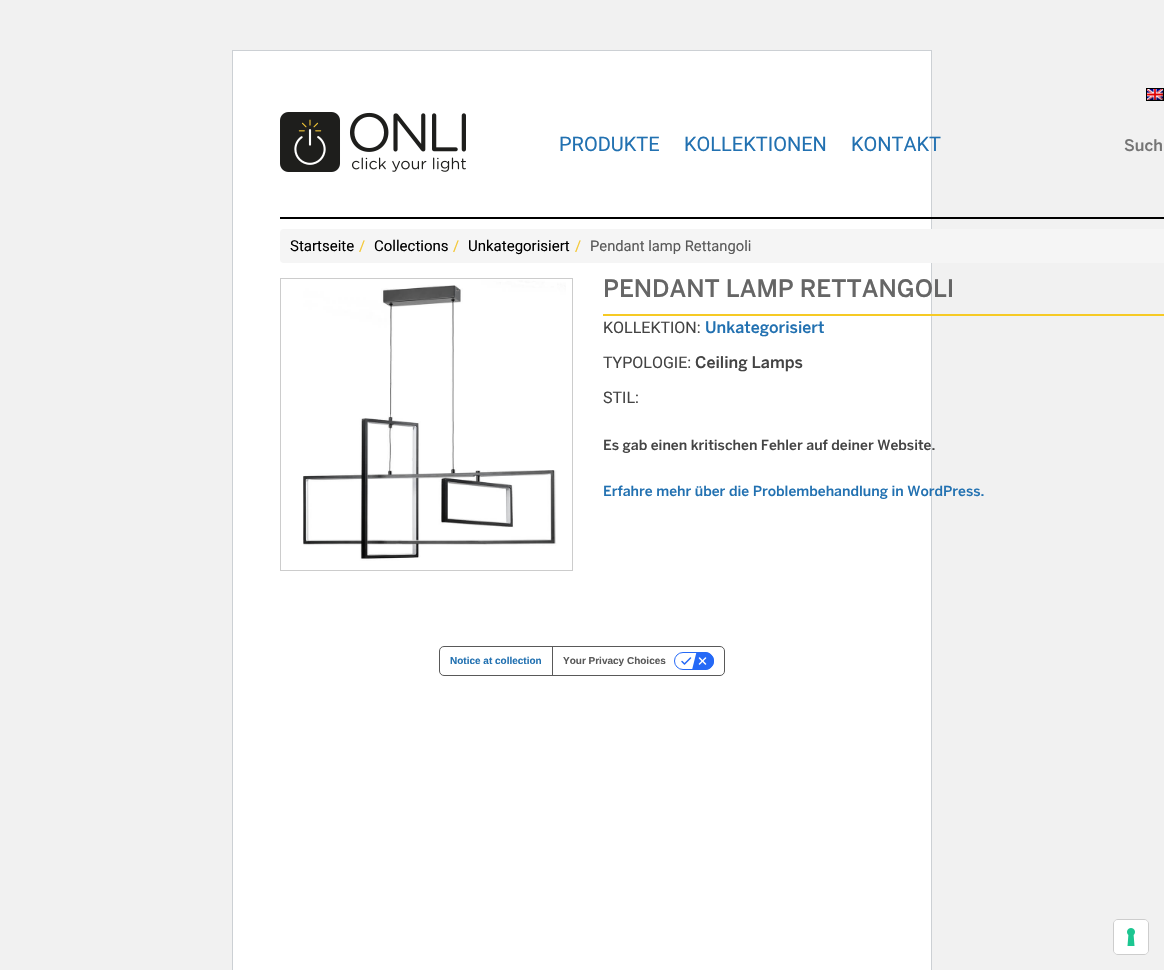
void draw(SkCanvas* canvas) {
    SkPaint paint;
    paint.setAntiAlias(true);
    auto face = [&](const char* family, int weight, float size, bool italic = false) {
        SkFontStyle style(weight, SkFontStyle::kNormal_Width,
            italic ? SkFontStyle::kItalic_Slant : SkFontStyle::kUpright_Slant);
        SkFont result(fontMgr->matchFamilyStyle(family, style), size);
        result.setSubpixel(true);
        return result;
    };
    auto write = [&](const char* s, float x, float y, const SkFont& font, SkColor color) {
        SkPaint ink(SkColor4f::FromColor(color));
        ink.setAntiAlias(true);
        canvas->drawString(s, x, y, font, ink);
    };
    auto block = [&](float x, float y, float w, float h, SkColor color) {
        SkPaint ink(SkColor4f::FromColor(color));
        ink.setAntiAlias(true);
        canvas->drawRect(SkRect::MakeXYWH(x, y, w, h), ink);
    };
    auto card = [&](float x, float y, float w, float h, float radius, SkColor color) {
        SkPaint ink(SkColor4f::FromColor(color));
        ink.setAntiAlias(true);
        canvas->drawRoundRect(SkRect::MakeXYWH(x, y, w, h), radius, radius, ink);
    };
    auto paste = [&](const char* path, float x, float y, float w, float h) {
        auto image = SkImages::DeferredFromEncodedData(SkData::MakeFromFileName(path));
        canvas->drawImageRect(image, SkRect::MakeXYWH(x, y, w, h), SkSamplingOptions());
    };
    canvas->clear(SkColorSetRGB(241, 241, 241));
    paint.setColor(SK_ColorWHITE);
    canvas->drawRect(SkRect::MakeXYWH(232.5f, 50.5f, 699, 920), paint);
    paint.setStyle(SkPaint::kStroke_Style);
    paint.setStrokeWidth(1);
    paint.setColor(SkColorSetRGB(204, 208, 212));
    canvas->drawRect(SkRect::MakeXYWH(232.5f, 50.5f, 699, 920), paint);
    paste("pic1.png", 280, 112, 186, 60);
    auto kFont1 = face("Roboto", 400, 20);
    write("PRODUKTE", 559, 151, kFont1, SkColorSetRGB(34, 113, 177));
    write("KOLLEKTIONEN", 684, 151, kFont1, SkColorSetRGB(34, 113, 177));
    write("KONTAKT", 851, 151, kFont1, SkColorSetRGB(34, 113, 177));
    paint.setColor(SK_ColorBLACK);
    canvas->drawRect(SkRect::MakeXYWH(1146.5f, 88.5f, 17, 12), paint);
    paste("pic2.png", 1147, 89, 16, 11);
    auto kFont2 = face("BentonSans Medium", 500, 16);
    write("Such", 1124, 151, kFont2, SkColorSetRGB(117, 117, 117));
    block(280, 217, 884, 2, SK_ColorBLACK);
    card(280, 229, 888, 34, 4, SkColorSetRGB(245, 245, 245));
    auto kFont3 = face("Roboto", 400, 15);
    write("Startseite", 290, 251, kFont3, SK_ColorBLACK);
    auto kFont4 = face("Roboto", 400, 14.75f);
    write("/", 359, 251, kFont4, SkColorSetRGB(244, 200, 54));
    write("Collections", 374, 251, kFont3, SK_ColorBLACK);
    write("/", 453, 251, kFont4, SkColorSetRGB(244, 200, 54));
    write("Unkategorisiert", 468, 251, kFont3, SK_ColorBLACK);
    write("/", 575, 251, kFont4, SkColorSetRGB(244, 200, 54));
    write("Pendant lamp Rettangoli", 590, 251, kFont4, SkColorSetRGB(89, 89, 89));
    paint.setColor(SkColorSetRGB(204, 204, 204));
    canvas->drawRect(SkRect::MakeXYWH(280.5f, 278.5f, 292, 292), paint);
    paste("pic3.png", 303, 280, 263, 281);
    block(603, 314, 561, 2, SkColorSetRGB(246, 202, 36));
    auto kFont5 = face("BentonSans Medium", 500, 24);
    write("PENDANT LAMP RETTANGOLI", 603, 297, kFont5, SkColorSetRGB(102, 102, 102));
    auto kFont6 = face("Roboto", 400, 16);
    write("KOLLEKTION:", 603, 333, kFont6, SkColorSetRGB(68, 68, 68));
    write("Unkategorisiert", 705, 333, kFont2, SkColorSetRGB(34, 113, 177));
    write("TYPOLOGIE:", 603, 368, kFont6, SkColorSetRGB(68, 68, 68));
    write("Ceiling Lamps", 695, 368, kFont2, SkColorSetRGB(68, 68, 68));
    write("STIL:", 603, 403, kFont6, SkColorSetRGB(68, 68, 68));
    auto kFont7 = face("BentonSans Medium", 500, 14);
    write("Es gab einen kritischen Fehler auf deiner Website.", 603, 450, kFont7, SkColorSetRGB(68, 68, 68));
    write("Erfahre mehr über die Problembehandlung in WordPress.", 603, 496, kFont7, SkColorSetRGB(34, 113, 177));
    paint.setColor(SkColorSetRGB(89, 89, 89));
    canvas->drawRoundRect(SkRect::MakeXYWH(439.5f, 646.5f, 285, 29), 4.5f, 4.5f, paint);
    auto kFont8 = face("Liberation Sans", 700, 10);
    write("Notice at collection", 450, 664, kFont8, SkColorSetRGB(34, 113, 177));
    block(552, 647, 1, 28, SkColorSetRGB(89, 89, 89));
    write("Your Privacy Choices", 563, 664, kFont8, SkColorSetRGB(89, 89, 89));
    paste("pic4.png", 674, 652, 40, 18);
    paint.setColor(SkColorSetRGB(205, 205, 205));
    canvas->drawRoundRect(SkRect::MakeXYWH(1113.5f, 919.5f, 35, 35), 4.5f, 4.5f, paint);
    card(1114, 920, 34, 34, 4, SK_ColorWHITE);
    paste("pic5.png", 1127, 928, 8, 18);
}
